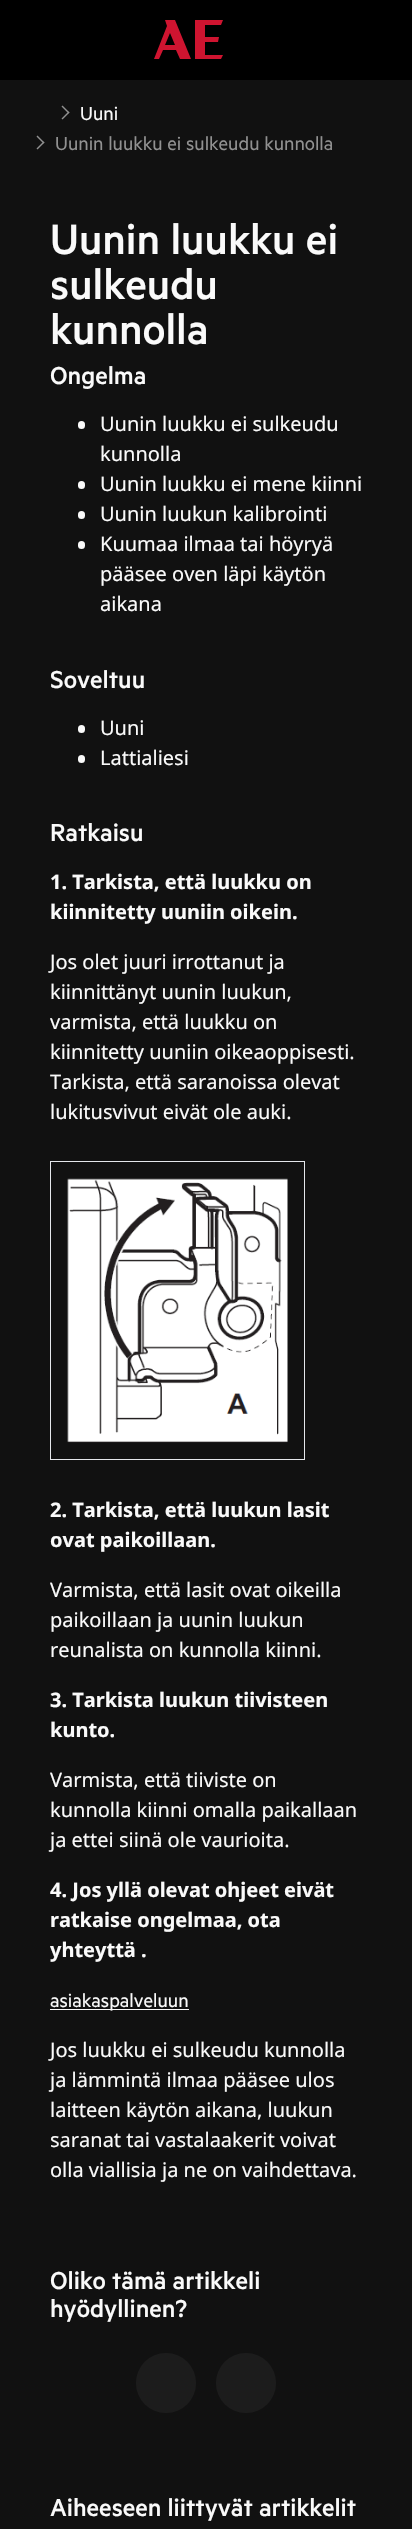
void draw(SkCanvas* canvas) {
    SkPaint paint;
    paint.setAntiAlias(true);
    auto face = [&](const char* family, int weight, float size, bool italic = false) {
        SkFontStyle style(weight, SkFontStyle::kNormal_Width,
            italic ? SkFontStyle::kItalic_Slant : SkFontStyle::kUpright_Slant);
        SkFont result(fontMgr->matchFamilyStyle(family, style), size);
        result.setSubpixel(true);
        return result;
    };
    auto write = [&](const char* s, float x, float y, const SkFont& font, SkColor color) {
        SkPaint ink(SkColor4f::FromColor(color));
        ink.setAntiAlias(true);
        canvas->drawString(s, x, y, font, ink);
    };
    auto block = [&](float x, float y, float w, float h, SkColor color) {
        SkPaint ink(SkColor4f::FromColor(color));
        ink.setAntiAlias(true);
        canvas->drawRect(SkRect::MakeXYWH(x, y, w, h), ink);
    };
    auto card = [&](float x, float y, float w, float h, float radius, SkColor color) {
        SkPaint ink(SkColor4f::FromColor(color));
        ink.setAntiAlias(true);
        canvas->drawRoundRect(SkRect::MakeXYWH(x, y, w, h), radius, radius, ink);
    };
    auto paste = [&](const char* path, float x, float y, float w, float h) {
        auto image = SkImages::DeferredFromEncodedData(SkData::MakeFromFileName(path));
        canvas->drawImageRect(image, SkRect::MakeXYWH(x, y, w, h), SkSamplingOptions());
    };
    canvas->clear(SkColorSetRGB(17, 17, 17));
    block(0, 0, 412, 80, SK_ColorBLACK);
    paint.setColor(SkColorSetRGB(207, 20, 48));
    canvas->drawPath(SkPathBuilder().moveTo(165, 20).lineTo(167, 26).lineTo(154, 59).lineTo(159, 59).lineTo(163, 50).lineTo(176, 50).lineTo(180, 59).lineTo(191, 59).lineTo(175, 20).close().moveTo(165, 45).lineTo(170, 33).lineTo(175, 45).close().moveTo(205, 42).lineTo(218, 42).lineTo(219, 37).lineTo(205, 37).lineTo(205, 25).lineTo(221, 25).lineTo(223, 20).lineTo(195, 20).lineTo(195, 59).lineTo(221, 59).lineTo(223, 55).lineTo(205, 55).close().detach(), paint);
    paint.setColor(SkColorSetRGB(145, 145, 145));
    canvas->drawPath(SkPathBuilder().moveTo(62.5f, 105.5f).lineTo(69.5f, 112.5f).lineTo(68.5f, 113.5f).lineTo(61.5f, 106.5f).close().detach(), paint);
    canvas->drawPath(SkPathBuilder().moveTo(68.5f, 111.5f).lineTo(69.5f, 112.5f).lineTo(62.5f, 119.5f).lineTo(61.5f, 118.5f).close().moveTo(37.5f, 135.5f).lineTo(44.5f, 142.5f).lineTo(43.5f, 143.5f).lineTo(36.5f, 136.5f).close().detach(), paint);
    auto kFont1 = face("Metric", 400, 21.25f);
    write("Uuni", 80, 120, kFont1, SkColorSetRGB(250, 250, 250));
    canvas->drawPath(SkPathBuilder().moveTo(43.5f, 141.5f).lineTo(44.5f, 142.5f).lineTo(37.5f, 149.5f).lineTo(36.5f, 148.5f).close().detach(), paint);
    write("Uunin luukku ei sulkeudu kunnolla", 55, 150, kFont1, SkColorSetRGB(145, 145, 145));
    auto kFont2 = face("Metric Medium", 500, 47.5f);
    write("Uunin luukku ei", 50, 254, kFont2, SkColorSetRGB(250, 250, 250));
    write("sulkeudu", 50, 299, kFont2, SkColorSetRGB(250, 250, 250));
    write("kunnolla", 50, 344, kFont2, SkColorSetRGB(250, 250, 250));
    auto kFont3 = face("Metric Medium", 500, 27.5f);
    write("Ongelma", 50, 384, kFont3, SkColorSetRGB(250, 250, 250));
    card(78, 421, 7, 8, 3.5f, SkColorSetRGB(250, 250, 250));
    auto kFont4 = face("Noto Sans", 400, 20);
    write("Uunin luukku ei sulkeudu", 100, 431, kFont4, SkColorSetRGB(250, 250, 250));
    write("kunnolla", 100, 461, kFont4, SkColorSetRGB(250, 250, 250));
    card(78, 481, 7, 8, 3.5f, SkColorSetRGB(250, 250, 250));
    write("Uunin luukku ei mene kiinni", 100, 491, kFont4, SkColorSetRGB(250, 250, 250));
    card(78, 511, 7, 8, 3.5f, SkColorSetRGB(250, 250, 250));
    write("Uunin luukun kalibrointi", 100, 521, kFont4, SkColorSetRGB(250, 250, 250));
    card(78, 541, 7, 8, 3.5f, SkColorSetRGB(250, 250, 250));
    write("Kuumaa ilmaa tai höyryä", 100, 551, kFont4, SkColorSetRGB(250, 250, 250));
    write("pääsee oven läpi käytön", 100, 581, kFont4, SkColorSetRGB(250, 250, 250));
    write("aikana", 100, 611, kFont4, SkColorSetRGB(250, 250, 250));
    write("Soveltuu", 50, 688, kFont3, SkColorSetRGB(250, 250, 250));
    card(78, 725, 7, 8, 3.5f, SkColorSetRGB(250, 250, 250));
    write("Uuni", 100, 735, kFont4, SkColorSetRGB(250, 250, 250));
    card(78, 755, 7, 8, 3.5f, SkColorSetRGB(250, 250, 250));
    write("Lattialiesi", 100, 765, kFont4, SkColorSetRGB(250, 250, 250));
    write("Ratkaisu", 50, 841, kFont3, SkColorSetRGB(250, 250, 250));
    auto kFont5 = face("Noto Sans", 700, 20);
    write("1. Tarkista, että luukku on", 50, 889, kFont5, SkColorSetRGB(250, 250, 250));
    write("kiinnitetty uuniin oikein.", 50, 919, kFont5, SkColorSetRGB(250, 250, 250));
    write("Jos olet juuri irrottanut ja", 50, 969, kFont4, SkColorSetRGB(250, 250, 250));
    write("kiinnittänyt uunin luukun,", 50, 999, kFont4, SkColorSetRGB(250, 250, 250));
    write("varmista, että luukku on", 50, 1029, kFont4, SkColorSetRGB(250, 250, 250));
    write("kiinnitetty uuniin oikeaoppisesti.", 50, 1059, kFont4, SkColorSetRGB(250, 250, 250));
    write("Tarkista, että saranoissa olevat", 50, 1089, kFont4, SkColorSetRGB(250, 250, 250));
    write("lukitusvivut eivät ole auki.", 50, 1119, kFont4, SkColorSetRGB(250, 250, 250));
    block(50, 1161, 255, 1, SkColorSetRGB(229, 231, 235));
    block(304, 1161, 1, 299, SkColorSetRGB(229, 231, 235));
    block(50, 1459, 255, 1, SkColorSetRGB(229, 231, 235));
    block(50, 1161, 1, 299, SkColorSetRGB(229, 231, 235));
    paste("pic1.png", 67, 1178, 221, 265);
    write("2. Tarkista, että luukun lasit", 50, 1517, kFont5, SkColorSetRGB(250, 250, 250));
    write("ovat paikoillaan.", 50, 1547, kFont5, SkColorSetRGB(250, 250, 250));
    write("Varmista, että lasit ovat oikeilla", 50, 1597, kFont4, SkColorSetRGB(250, 250, 250));
    write("paikoillaan ja uunin luukun", 50, 1627, kFont4, SkColorSetRGB(250, 250, 250));
    write("reunalista on kunnolla kiinni.", 50, 1657, kFont4, SkColorSetRGB(250, 250, 250));
    write("3. Tarkista luukun tiivisteen", 50, 1707, kFont5, SkColorSetRGB(250, 250, 250));
    write("kunto.", 50, 1737, kFont5, SkColorSetRGB(250, 250, 250));
    write("Varmista, että tiiviste on", 50, 1787, kFont4, SkColorSetRGB(250, 250, 250));
    write("kunnolla kiinni omalla paikallaan", 50, 1817, kFont4, SkColorSetRGB(250, 250, 250));
    write("ja ettei siinä ole vaurioita.", 50, 1847, kFont4, SkColorSetRGB(250, 250, 250));
    write("4. Jos yllä olevat ohjeet eivät", 50, 1897, kFont5, SkColorSetRGB(250, 250, 250));
    write("ratkaise ongelmaa, ota", 50, 1927, kFont5, SkColorSetRGB(250, 250, 250));
    write("yhteyttä .", 50, 1957, kFont5, SkColorSetRGB(250, 250, 250));
    block(50, 2009, 139, 1, SkColorSetRGB(250, 250, 250));
    write("asiakaspalveluun", 50, 2007, kFont1, SkColorSetRGB(250, 250, 250));
    write("Jos luukku ei sulkeudu kunnolla", 50, 2057, kFont4, SkColorSetRGB(250, 250, 250));
    write("ja lämmintä ilmaa pääsee ulos", 50, 2087, kFont4, SkColorSetRGB(250, 250, 250));
    write("laitteen käytön aikana, luukun", 50, 2117, kFont4, SkColorSetRGB(250, 250, 250));
    write("saranat tai vastalaakerit voivat", 50, 2147, kFont4, SkColorSetRGB(250, 250, 250));
    write("olla viallisia ja ne on vaihdettava.", 50, 2177, kFont4, SkColorSetRGB(250, 250, 250));
    write("Oliko tämä artikkeli", 50, 2289, kFont3, SkColorSetRGB(250, 250, 250));
    write("hyödyllinen?", 50, 2317, kFont3, SkColorSetRGB(250, 250, 250));
    paint.setColor(SkColorSetRGB(28, 28, 28));
    canvas->drawCircle(166, 2383, 30, paint);
    canvas->drawCircle(246, 2383, 30, paint);
    write("Aiheeseen liittyvät artikkelit", 50, 2516, kFont3, SkColorSetRGB(250, 250, 250));
}
